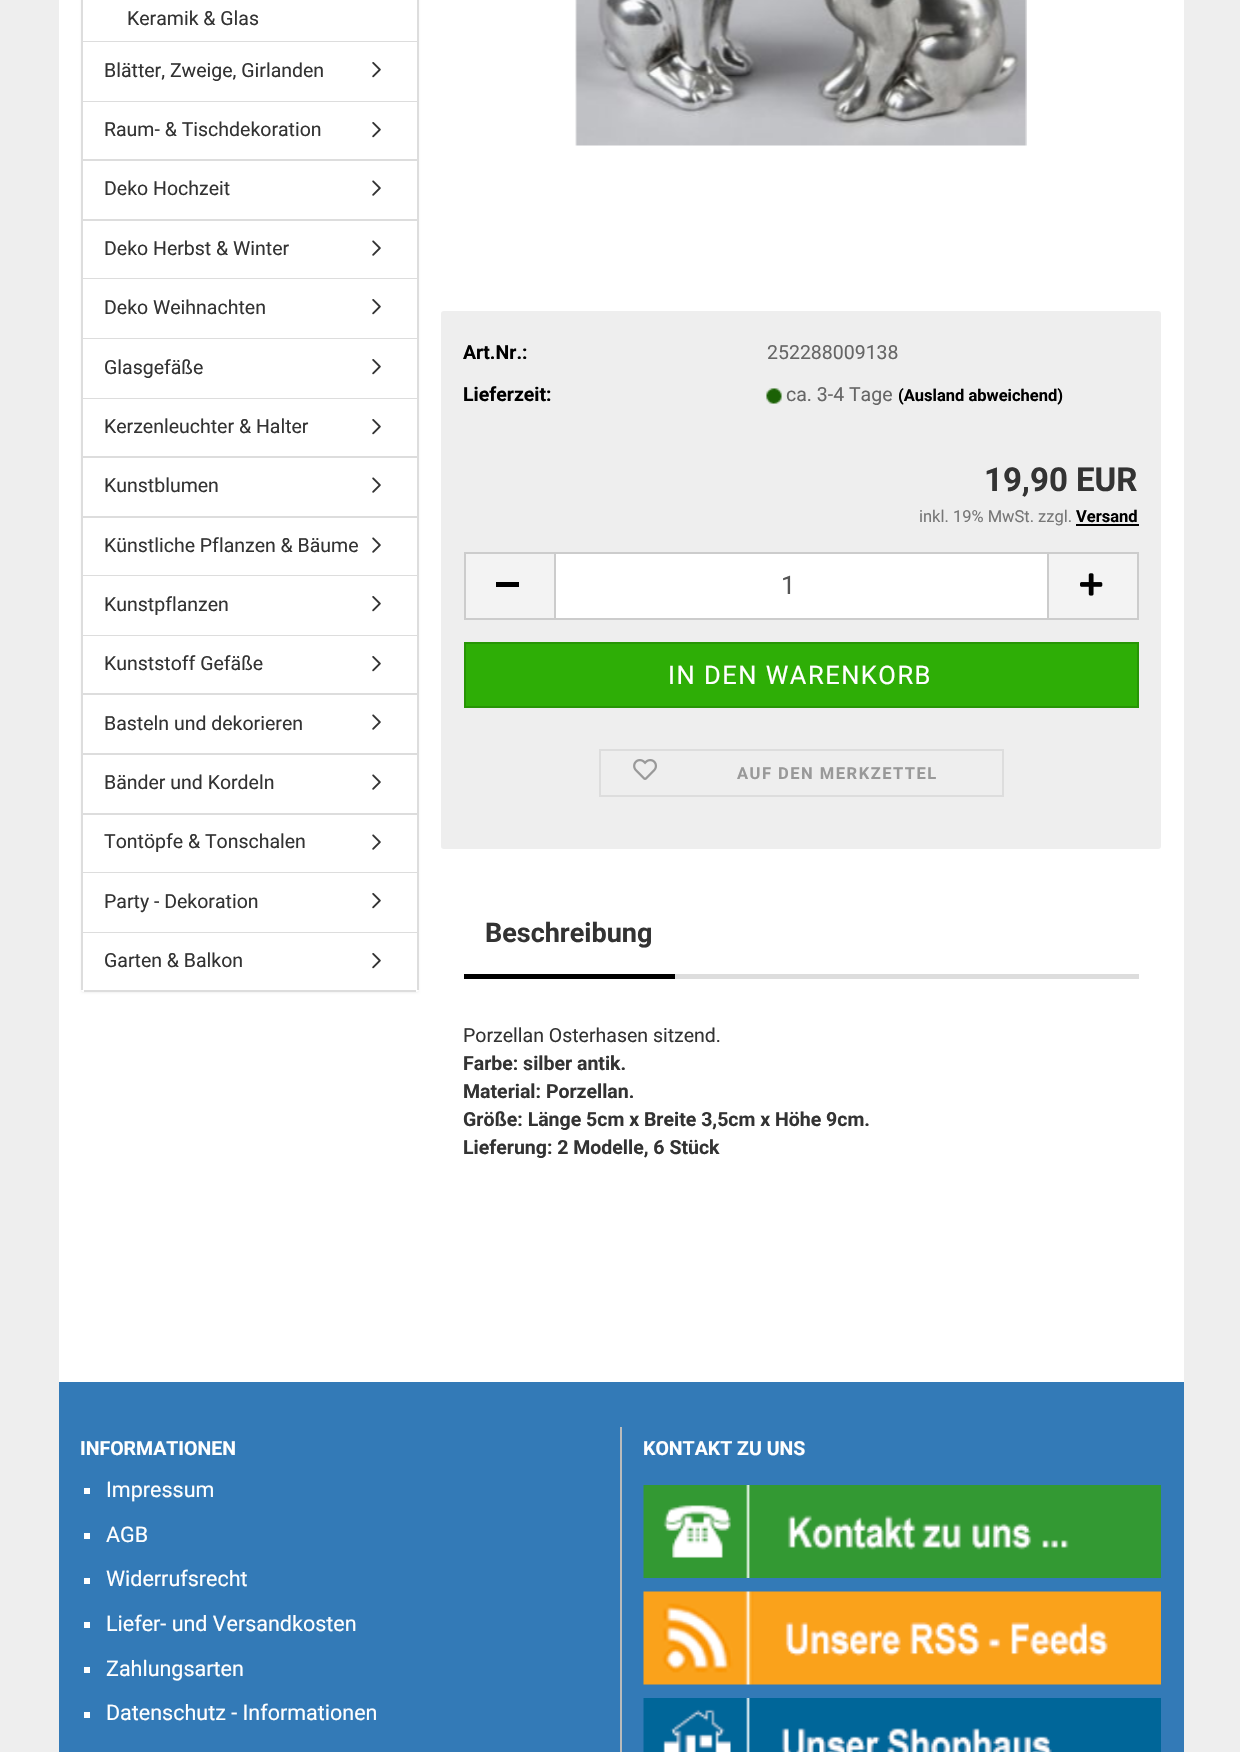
void draw(SkCanvas* canvas) {
    SkPaint paint;
    paint.setAntiAlias(true);
    auto face = [&](const char* family, int weight, float size, bool italic = false) {
        SkFontStyle style(weight, SkFontStyle::kNormal_Width,
            italic ? SkFontStyle::kItalic_Slant : SkFontStyle::kUpright_Slant);
        SkFont result(fontMgr->matchFamilyStyle(family, style), size);
        result.setSubpixel(true);
        return result;
    };
    auto write = [&](const char* s, float x, float y, const SkFont& font, SkColor color) {
        SkPaint ink(SkColor4f::FromColor(color));
        ink.setAntiAlias(true);
        canvas->drawString(s, x, y, font, ink);
    };
    auto writeSpaced = [&](const char* s, float x, float y, const SkFont& font, const SkPaint& ink, float letter, float word) {
        std::vector<SkGlyphID> glyphs(font.countText(s, strlen(s), SkTextEncoding::kUTF8));
        std::vector<float> xs(glyphs.size());
        font.textToGlyphs(s, strlen(s), SkTextEncoding::kUTF8, glyphs);
        font.getXPos(glyphs, xs, x);
        float extra = 0;
        for (size_t i = 0; i < glyphs.size(); i++) {
            xs[i] += extra;
            extra += letter + word * (glyphs[i] == font.unicharToGlyph(' '));
        }
        canvas->drawTextBlob(SkTextBlob::MakeFromPosHGlyphs(glyphs, xs, y, font), 0, 0, ink);
    };
    auto block = [&](float x, float y, float w, float h, SkColor color) {
        SkPaint ink(SkColor4f::FromColor(color));
        ink.setAntiAlias(true);
        canvas->drawRect(SkRect::MakeXYWH(x, y, w, h), ink);
    };
    auto card = [&](float x, float y, float w, float h, float radius, SkColor color) {
        SkPaint ink(SkColor4f::FromColor(color));
        ink.setAntiAlias(true);
        canvas->drawRoundRect(SkRect::MakeXYWH(x, y, w, h), radius, radius, ink);
    };
    auto paste = [&](const char* path, float x, float y, float w, float h) {
        auto image = SkImages::DeferredFromEncodedData(SkData::MakeFromFileName(path));
        canvas->drawImageRect(image, SkRect::MakeXYWH(x, y, w, h), SkSamplingOptions());
    };
    canvas->clear(SkColorSetRGB(238, 238, 238));
    block(59, 0, 1125, 1382, SK_ColorWHITE);
    paint.setColor(SkColorSetARGB(13, 0, 0, 0));
    paint.setMaskFilter(SkMaskFilter::MakeBlur(kNormal_SkBlurStyle, 1));
    canvas->drawRoundRect(SkRect::MakeXYWH(81, -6, 338, 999), 3, 3, paint);
    paint.setMaskFilter(nullptr);
    card(81, -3, 338, 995, 3, SK_ColorWHITE);
    block(417, 0, 2, 990, SkColorSetRGB(221, 221, 221));
    block(81, 0, 2, 990, SkColorSetRGB(221, 221, 221));
    block(83, 41, 334, 1, SkColorSetRGB(221, 221, 221));
    auto kFont1 = face("Roboto", 400, 19.5f);
    write("Keramik & Glas", 127, 25, kFont1, SkColorSetRGB(51, 51, 51));
    block(83, 101, 334, 1, SkColorSetRGB(221, 221, 221));
    write("Blätter, Zweige, Girlanden", 104, 77, kFont1, SkColorSetRGB(51, 51, 51));
    paste("pic1.png", 372, 62, 9, 16);
    block(83, 159, 334, 2, SkColorSetRGB(221, 221, 221));
    write("Raum- & Tischdekoration", 104, 136, kFont1, SkColorSetRGB(51, 51, 51));
    paste("pic1.png", 372, 122, 9, 16);
    block(83, 219, 334, 2, SkColorSetRGB(221, 221, 221));
    write("Deko Hochzeit", 104, 195, kFont1, SkColorSetRGB(51, 51, 51));
    paste("pic2.png", 372, 180, 9, 16);
    block(83, 278, 334, 1, SkColorSetRGB(221, 221, 221));
    write("Deko Herbst & Winter", 104, 255, kFont1, SkColorSetRGB(51, 51, 51));
    paste("pic2.png", 372, 240, 9, 16);
    block(83, 338, 334, 1, SkColorSetRGB(221, 221, 221));
    write("Deko Weihnachten", 104, 314, kFont1, SkColorSetRGB(51, 51, 51));
    paste("pic1.png", 372, 299, 9, 16);
    block(83, 398, 334, 1, SkColorSetRGB(221, 221, 221));
    write("Glasgefäße", 104, 374, kFont1, SkColorSetRGB(51, 51, 51));
    paste("pic1.png", 372, 359, 9, 16);
    block(83, 456, 334, 2, SkColorSetRGB(221, 221, 221));
    write("Kerzenleuchter & Halter", 104, 433, kFont1, SkColorSetRGB(51, 51, 51));
    paste("pic1.png", 372, 419, 9, 16);
    block(83, 516, 334, 2, SkColorSetRGB(221, 221, 221));
    write("Kunstblumen", 104, 492, kFont1, SkColorSetRGB(51, 51, 51));
    paste("pic2.png", 372, 477, 9, 16);
    block(83, 575, 334, 1, SkColorSetRGB(221, 221, 221));
    write("Künstliche Pflanzen & Bäume", 104, 552, kFont1, SkColorSetRGB(51, 51, 51));
    paste("pic2.png", 372, 537, 9, 16);
    block(83, 635, 334, 1, SkColorSetRGB(221, 221, 221));
    write("Kunstpflanzen", 104, 611, kFont1, SkColorSetRGB(51, 51, 51));
    paste("pic1.png", 372, 596, 9, 16);
    block(83, 693, 334, 2, SkColorSetRGB(221, 221, 221));
    write("Kunststoff Gefäße", 104, 670, kFont1, SkColorSetRGB(51, 51, 51));
    paste("pic1.png", 372, 656, 9, 16);
    block(83, 753, 334, 2, SkColorSetRGB(221, 221, 221));
    write("Basteln und dekorieren", 104, 730, kFont1, SkColorSetRGB(51, 51, 51));
    paste("pic2.png", 372, 714, 9, 16);
    block(83, 813, 334, 2, SkColorSetRGB(221, 221, 221));
    write("Bänder und Kordeln", 104, 789, kFont1, SkColorSetRGB(51, 51, 51));
    paste("pic2.png", 372, 774, 9, 16);
    block(83, 872, 334, 1, SkColorSetRGB(221, 221, 221));
    write("Tontöpfe & Tonschalen", 104, 848, kFont1, SkColorSetRGB(51, 51, 51));
    paste("pic2.png", 372, 834, 9, 16);
    block(83, 932, 334, 1, SkColorSetRGB(221, 221, 221));
    write("Party - Dekoration", 104, 908, kFont1, SkColorSetRGB(51, 51, 51));
    paste("pic1.png", 372, 893, 9, 16);
    block(84, 990, 332, 2, SkColorSetRGB(221, 221, 221));
    write("Garten & Balkon", 104, 967, kFont1, SkColorSetRGB(51, 51, 51));
    paste("pic1.png", 372, 953, 9, 16);
    paste("pic3.png", 575, 0, 452, 146);
    card(441, 311, 720, 538, 3, SkColorSetRGB(238, 238, 238));
    auto kFont2 = face("Roboto", 700, 19.5f);
    write("Art.Nr.:", 463, 359, kFont2, SK_ColorBLACK);
    write("252288009138", 767, 359, kFont1, SkColorSetRGB(102, 102, 102));
    write("Lieferzeit:", 463, 401, kFont2, SK_ColorBLACK);
    paste("pic4.png", 766, 388, 16, 16);
    write("ca. 3-4 Tage", 786, 401, kFont1, SkColorSetRGB(102, 102, 102));
    auto kFont3 = face("Roboto", 700, 16.5f);
    write("(Ausland abweichend)", 898, 401, kFont3, SK_ColorBLACK);
    auto kFont4 = face("Roboto", 700, 33);
    write("19,90 EUR", 984, 491, kFont4, SkColorSetRGB(51, 51, 51));
    auto kFont5 = face("Roboto", 400, 16.5f);
    write("inkl. 19% MwSt. zzgl.", 919, 522, kFont5, SkColorSetRGB(119, 119, 119));
    write("Versand", 1076, 522, kFont3, SK_ColorBLACK);
    block(1076, 524, 63, 2, SK_ColorBLACK);
    block(466, 554, 88, 64, SkColorSetRGB(243, 243, 243));
    block(464, 552, 90, 2, SkColorSetRGB(204, 204, 204));
    block(464, 618, 90, 2, SkColorSetRGB(204, 204, 204));
    block(464, 552, 2, 68, SkColorSetRGB(204, 204, 204));
    block(496, 582, 23, 5, SK_ColorBLACK);
    paint.setColor(SK_ColorWHITE);
    canvas->drawRect(SkRect::MakeXYWH(555, 553, 493, 66), paint);
    paint.setStyle(SkPaint::kStroke_Style);
    paint.setStrokeWidth(2);
    paint.setColor(SkColorSetRGB(204, 204, 204));
    canvas->drawRect(SkRect::MakeXYWH(555, 553, 493, 66), paint);
    auto kFont6 = face("Roboto", 400, 25.5f);
    write("1", 781, 594, kFont6, SkColorSetRGB(85, 85, 85));
    block(1049, 554, 88, 64, SkColorSetRGB(243, 243, 243));
    block(1049, 552, 90, 2, SkColorSetRGB(204, 204, 204));
    block(1137, 552, 2, 68, SkColorSetRGB(204, 204, 204));
    block(1049, 618, 90, 2, SkColorSetRGB(204, 204, 204));
    paste("pic5.png", 1080, 573, 23, 23);
    paint.setStyle(SkPaint::kFill_Style);
    paint.setColor(SkColorSetRGB(46, 174, 6));
    canvas->drawRect(SkRect::MakeXYWH(465, 643, 673, 64), paint);
    paint.setStyle(SkPaint::kStroke_Style);
    paint.setColor(SkColorSetRGB(39, 149, 5));
    canvas->drawRect(SkRect::MakeXYWH(465, 643, 673, 64), paint);
    paint.setStyle(SkPaint::kFill_Style);
    paint.setColor(SK_ColorWHITE);
    writeSpaced("IN DEN WARENKORB", 668, 684, kFont6, paint, 1.5f, 0);
    paint.setStyle(SkPaint::kStroke_Style);
    paint.setColor(SkColorSetRGB(221, 221, 221));
    canvas->drawRect(SkRect::MakeXYWH(600, 750, 403, 46), paint);
    paste("pic6.png", 633, 759, 24, 21);
    paint.setStyle(SkPaint::kFill_Style);
    paint.setColor(SkColorSetRGB(153, 153, 153));
    writeSpaced("AUF DEN MERKZETTEL", 737, 779, kFont3, paint, 1.5f, 0);
    block(675, 974, 464, 5, SkColorSetRGB(221, 221, 221));
    block(464, 974, 211, 5, SK_ColorBLACK);
    auto kFont7 = face("Roboto", 700, 27);
    write("Beschreibung", 485, 942, kFont7, SkColorSetRGB(51, 51, 51));
    write("Porzellan Osterhasen sitzend.", 463, 1042, kFont1, SkColorSetRGB(51, 51, 51));
    write("Farbe: silber antik.", 463, 1070, kFont2, SkColorSetRGB(51, 51, 51));
    write("Material: Porzellan.", 463, 1098, kFont2, SkColorSetRGB(51, 51, 51));
    write("Größe: Länge 5cm x Breite 3,5cm x Höhe 9cm.", 463, 1126, kFont2, SkColorSetRGB(51, 51, 51));
    write("Lieferung: 2 Modelle, 6 Stück", 463, 1154, kFont2, SkColorSetRGB(51, 51, 51));
    block(59, 1382, 1125, 370, SkColorSetRGB(51, 122, 183));
    block(620, 1427, 2, 325, SkColorSetRGB(187, 187, 187));
    write("INFORMATIONEN", 80, 1455, kFont2, SK_ColorWHITE);
    block(84, 1488, 6, 6, SK_ColorWHITE);
    auto kFont8 = face("Roboto", 400, 21.5f);
    write("Impressum", 106, 1497, kFont8, SK_ColorWHITE);
    block(84, 1533, 6, 6, SK_ColorWHITE);
    write("AGB", 106, 1542, kFont8, SK_ColorWHITE);
    block(84, 1578, 6, 6, SK_ColorWHITE);
    write("Widerrufsrecht", 106, 1586, kFont8, SK_ColorWHITE);
    block(84, 1622, 6, 6, SK_ColorWHITE);
    write("Liefer- und Versandkosten", 106, 1631, kFont8, SK_ColorWHITE);
    block(84, 1667, 6, 6, SK_ColorWHITE);
    write("Zahlungsarten", 106, 1676, kFont8, SK_ColorWHITE);
    block(84, 1712, 6, 6, SK_ColorWHITE);
    write("Datenschutz - Informationen", 106, 1720, kFont8, SK_ColorWHITE);
    write("KONTAKT ZU UNS", 643, 1455, kFont2, SK_ColorWHITE);
    paste("pic7.png", 643, 1485, 518, 93);
    paste("pic8.png", 643, 1591, 518, 94);
    paste("pic9.png", 643, 1698, 518, 54);
}
